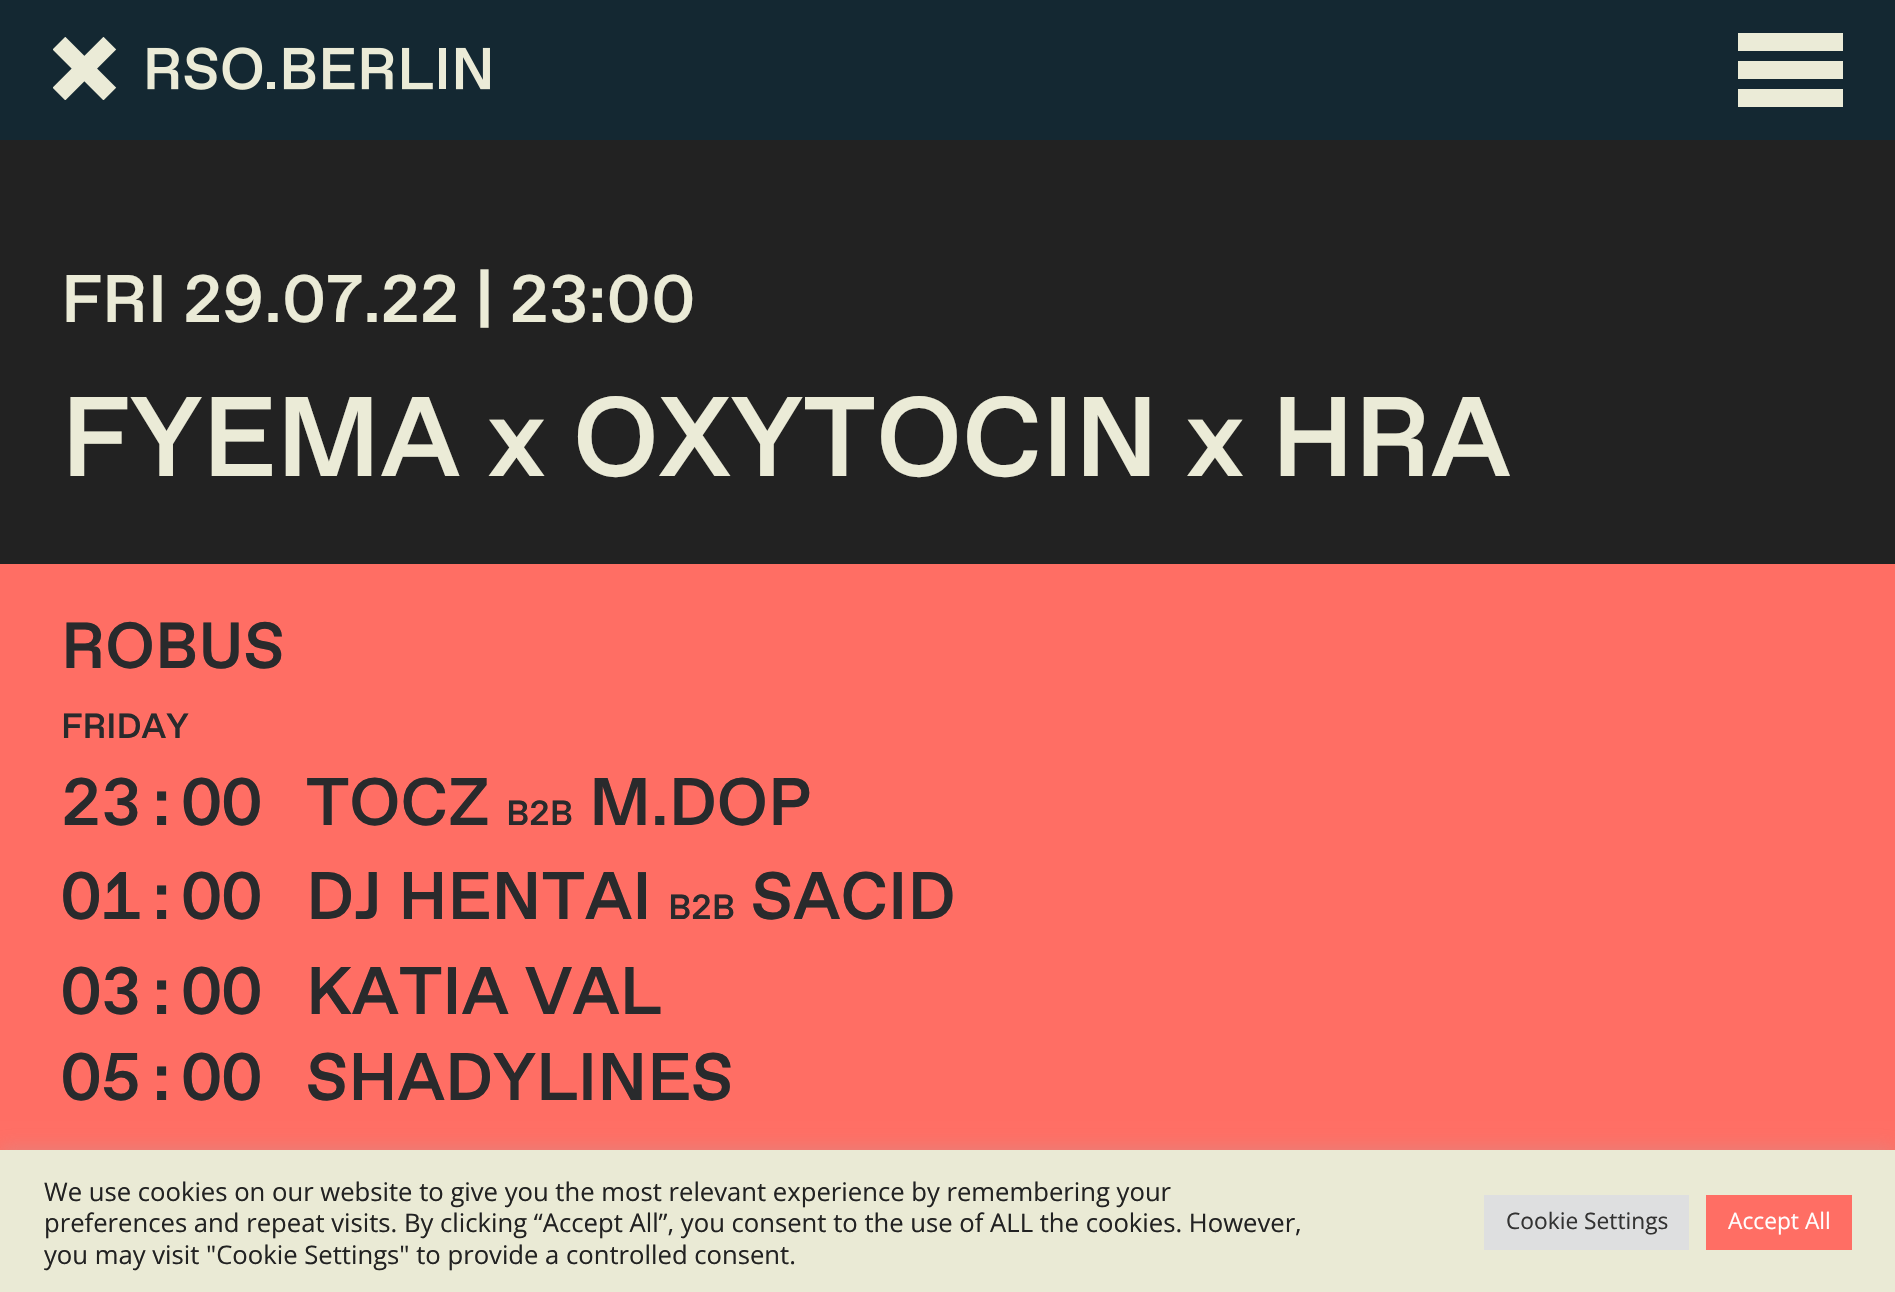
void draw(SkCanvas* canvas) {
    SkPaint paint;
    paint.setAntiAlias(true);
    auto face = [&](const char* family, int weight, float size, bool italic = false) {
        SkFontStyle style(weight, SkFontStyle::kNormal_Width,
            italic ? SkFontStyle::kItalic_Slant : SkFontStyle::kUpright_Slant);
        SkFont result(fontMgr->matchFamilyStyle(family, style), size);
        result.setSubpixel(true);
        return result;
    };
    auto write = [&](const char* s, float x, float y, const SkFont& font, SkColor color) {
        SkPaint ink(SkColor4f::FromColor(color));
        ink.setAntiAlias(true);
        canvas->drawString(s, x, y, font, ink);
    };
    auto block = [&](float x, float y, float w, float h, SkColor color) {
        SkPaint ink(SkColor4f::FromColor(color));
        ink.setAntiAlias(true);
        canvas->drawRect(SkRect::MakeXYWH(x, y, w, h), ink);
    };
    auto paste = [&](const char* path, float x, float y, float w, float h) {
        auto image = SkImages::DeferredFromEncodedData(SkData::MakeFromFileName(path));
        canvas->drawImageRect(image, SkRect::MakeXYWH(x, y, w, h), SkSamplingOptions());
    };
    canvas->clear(SkColorSetRGB(34, 34, 34));
    block(0, 0, 1895, 140, SkColorSetRGB(20, 40, 50));
    paste("pic1.png", 53, 37, 437, 63);
    block(1738, 61, 105, 18, SkColorSetRGB(235, 235, 215));
    block(1738, 33, 105, 18, SkColorSetRGB(235, 235, 215));
    block(1738, 89, 105, 18, SkColorSetRGB(235, 235, 215));
    auto kFont1 = face("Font", 500, 67);
    write("FRI 29.07.22 | 23:00", 61, 322, kFont1, SkColorSetRGB(235, 235, 215));
    auto kFont2 = face("Font", 500, 112.75f);
    write("FYEMA x OXYTOCIN x HRA", 61, 476, kFont2, SkColorSetRGB(235, 235, 215));
    block(0, 564, 1895, 586, SkColorSetRGB(255, 110, 100));
    auto kFont3 = face("Font", 500, 65);
    write("ROBUS", 61, 668, kFont3, SkColorSetRGB(41, 42, 44));
    auto kFont4 = face("Font", 500, 35);
    write("FRIDAY", 61, 738, kFont4, SkColorSetRGB(41, 42, 44));
    auto kFont5 = face("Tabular", 500, 67);
    write("23:00", 61, 825, kFont5, SkColorSetRGB(41, 42, 44));
    write("TOCZ", 306, 825, kFont1, SkColorSetRGB(41, 42, 44));
    write("B2B", 506, 825, kFont4, SkColorSetRGB(41, 42, 44));
    write("M.DOP", 589, 825, kFont1, SkColorSetRGB(41, 42, 44));
    write("01:00", 61, 919, kFont5, SkColorSetRGB(41, 42, 44));
    write("DJ HENTAI", 306, 919, kFont1, SkColorSetRGB(41, 42, 44));
    write("B2B", 668, 919, kFont4, SkColorSetRGB(41, 42, 44));
    write("SACID", 751, 919, kFont1, SkColorSetRGB(41, 42, 44));
    write("03:00", 61, 1014, kFont5, SkColorSetRGB(41, 42, 44));
    write("KATIA VAL", 306, 1014, kFont1, SkColorSetRGB(41, 42, 44));
    write("05:00", 61, 1100, kFont5, SkColorSetRGB(41, 42, 44));
    write("SHADYLINES", 306, 1100, kFont1, SkColorSetRGB(41, 42, 44));
    paint.setColor(SkColorSetARGB(77, 172, 171, 171));
    paint.setMaskFilter(SkMaskFilter::MakeBlur(kNormal_SkBlurStyle, 9));
    canvas->drawRect(SkRect::MakeXYWH(0, 1148, 1895, 144), paint);
    paint.setMaskFilter(nullptr);
    block(0, 1150, 1895, 142, SkColorSetRGB(234, 234, 213));
    auto kFont6 = face("Open Sans", 400, 25.65f);
    write("We use cookies on our website to give you the most relevant experience by remembering your", 44, 1201, kFont6, SkColorSetRGB(34, 34, 34));
    write("preferences and repeat visits. By clicking “Accept All”, you consent to the use of ALL the cookies. However,", 44, 1232, kFont6, SkColorSetRGB(34, 34, 34));
    write("you may visit \"Cookie Settings\" to provide a controlled consent.", 44, 1264, kFont6, SkColorSetRGB(34, 34, 34));
    block(1484, 1195, 205, 55, SkColorSetRGB(222, 223, 224));
    auto kFont7 = face("Open Sans", 400, 22.75f);
    write("Cookie Settings", 1506, 1229, kFont7, SkColorSetRGB(51, 51, 51));
    block(1706, 1195, 146, 55, SkColorSetRGB(255, 110, 100));
    write("Accept All", 1728, 1229, kFont7, SK_ColorWHITE);
}
